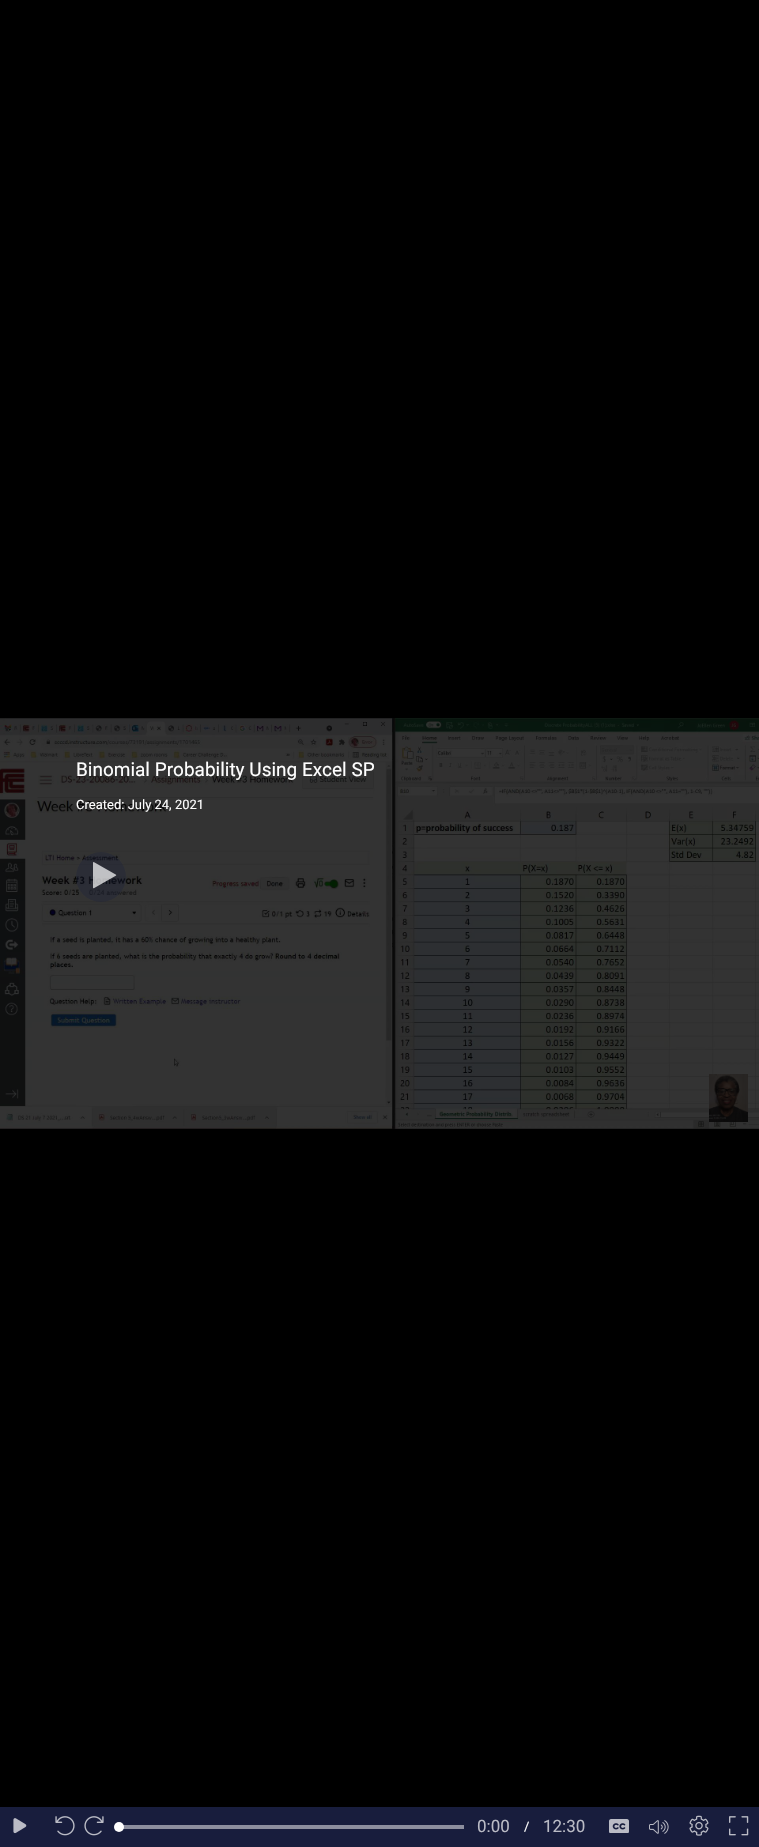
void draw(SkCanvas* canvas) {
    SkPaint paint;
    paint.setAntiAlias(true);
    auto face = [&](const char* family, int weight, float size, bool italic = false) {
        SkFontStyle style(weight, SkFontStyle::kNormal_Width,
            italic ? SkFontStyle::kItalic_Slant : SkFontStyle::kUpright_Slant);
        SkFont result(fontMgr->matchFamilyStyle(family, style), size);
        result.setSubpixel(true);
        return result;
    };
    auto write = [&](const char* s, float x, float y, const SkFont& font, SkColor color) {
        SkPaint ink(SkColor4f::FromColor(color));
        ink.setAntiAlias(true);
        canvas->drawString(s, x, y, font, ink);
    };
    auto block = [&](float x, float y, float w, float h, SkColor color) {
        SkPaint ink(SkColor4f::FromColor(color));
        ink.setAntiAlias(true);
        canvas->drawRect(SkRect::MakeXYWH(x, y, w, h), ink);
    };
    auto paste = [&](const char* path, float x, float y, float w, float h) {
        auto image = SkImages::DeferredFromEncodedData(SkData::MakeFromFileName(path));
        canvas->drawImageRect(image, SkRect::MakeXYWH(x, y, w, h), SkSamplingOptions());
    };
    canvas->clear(SK_ColorBLACK);
    paste("pic2.png", 0, 718, 759, 411);
    auto kFont1 = face("Roboto", 400, 19);
    write("Binomial Probability Using Excel SP", 76, 776, kFont1, SK_ColorWHITE);
    auto kFont2 = face("Roboto", 400, 13);
    write("Created: July 24, 2021", 76, 809, kFont2, SK_ColorWHITE);
    paint.setColor(SkColorSetARGB(77, 24, 29, 61));
    canvas->drawCircle(101, 877, 25, paint);
    paste("pic1.png", 93, 862, 24, 27);
    paste("pic3.png", 709, 1074, 39, 48);
    block(0, 1807, 510, 40, SkColorSetRGB(24, 29, 61));
    paste("pic4.png", 13, 1818, 14, 16);
    block(510, 1807, 249, 40, SkColorSetRGB(24, 29, 61));
    paste("pic5.png", 689, 1815, 20, 21);
    paste("pic6.png", 55, 1816, 20, 20);
    paste("pic7.png", 84, 1816, 20, 20);
    block(119, 1825, 345, 4, SkColorSetRGB(140, 142, 158));
    paint.setColor(SK_ColorWHITE);
    canvas->drawCircle(119, 1827, 5, paint);
    auto kFont3 = face("Roboto", 400, 17);
    write("0:00", 477, 1832, kFont3, SkColorSetRGB(186, 187, 197));
    write("/", 524, 1831, kFont2, SK_ColorWHITE);
    write("12:30", 543, 1832, kFont3, SkColorSetRGB(186, 187, 197));
    paste("pic8.png", 609, 1819, 20, 14);
    paste("pic9.png", 649, 1820, 20, 14);
    paste("pic10.png", 729, 1816, 20, 20);
}
